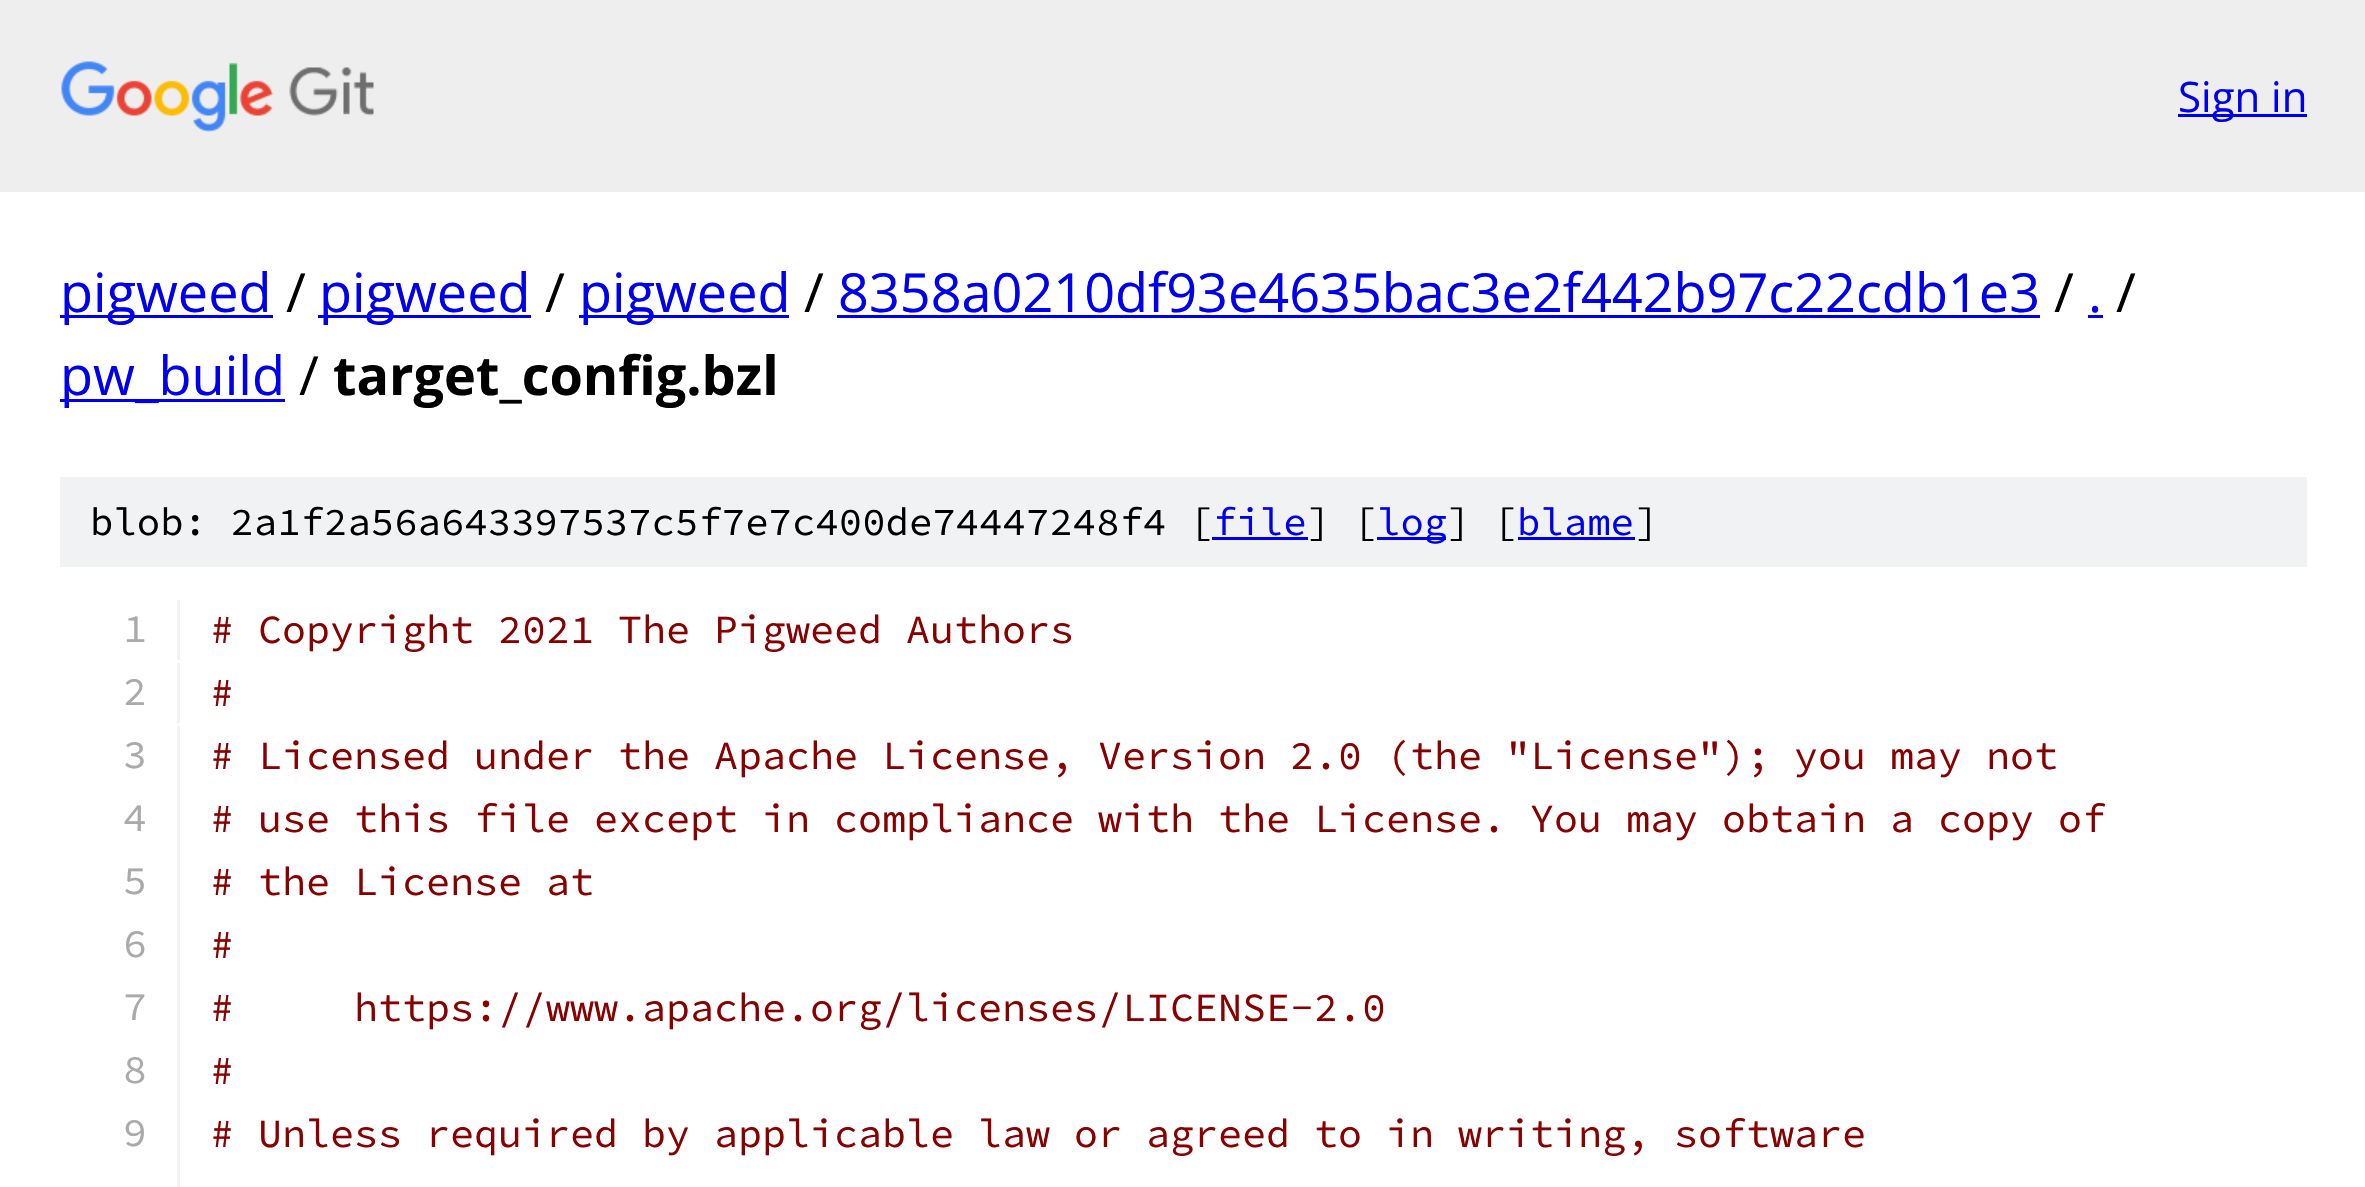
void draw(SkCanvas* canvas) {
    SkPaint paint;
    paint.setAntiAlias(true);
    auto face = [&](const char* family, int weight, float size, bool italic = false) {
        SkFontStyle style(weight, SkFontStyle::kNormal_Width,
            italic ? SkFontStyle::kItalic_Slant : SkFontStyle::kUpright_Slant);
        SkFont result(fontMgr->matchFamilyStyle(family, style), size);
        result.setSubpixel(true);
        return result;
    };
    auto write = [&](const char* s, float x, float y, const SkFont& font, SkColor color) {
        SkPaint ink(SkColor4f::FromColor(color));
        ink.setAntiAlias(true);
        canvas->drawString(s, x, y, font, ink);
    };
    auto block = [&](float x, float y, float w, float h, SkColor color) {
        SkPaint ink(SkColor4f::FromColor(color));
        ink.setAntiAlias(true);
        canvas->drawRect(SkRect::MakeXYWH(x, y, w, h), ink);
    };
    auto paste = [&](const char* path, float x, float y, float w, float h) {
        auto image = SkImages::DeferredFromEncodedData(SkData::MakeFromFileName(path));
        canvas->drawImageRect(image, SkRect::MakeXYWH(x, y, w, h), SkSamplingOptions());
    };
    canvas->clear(SK_ColorWHITE);
    block(0, 0, 2365, 192, SkColorSetRGB(238, 238, 238));
    paste("pic1.png", 61, 61, 313, 71);
    block(2178, 114, 129, 3, SkColorSetRGB(0, 0, 238));
    auto kFont1 = face("Open Sans", 400, 42);
    write("Sign in", 2178, 112, kFont1, SkColorSetRGB(0, 0, 238));
    block(60, 315, 213, 3, SkColorSetRGB(0, 0, 238));
    auto kFont2 = face("Open Sans", 400, 54);
    write("pigweed", 60, 312, kFont2, SkColorSetRGB(0, 0, 238));
    write("/", 286, 312, kFont2, SK_ColorBLACK);
    block(318, 315, 213, 3, SkColorSetRGB(0, 0, 238));
    write("pigweed", 319, 312, kFont2, SkColorSetRGB(0, 0, 238));
    write("/", 545, 312, kFont2, SK_ColorBLACK);
    block(579, 315, 210, 3, SkColorSetRGB(0, 0, 238));
    write("pigweed", 579, 312, kFont2, SkColorSetRGB(0, 0, 238));
    write("/", 804, 312, kFont2, SK_ColorBLACK);
    write("8358a0210df93e4635bac3e2f442b97c22cdb1e3", 838, 312, kFont2, SkColorSetRGB(0, 0, 238));
    block(837, 315, 1203, 3, SkColorSetRGB(0, 0, 238));
    write("/", 2054, 312, kFont2, SK_ColorBLACK);
    write(".", 2088, 312, kFont2, SkColorSetRGB(0, 0, 238));
    block(2088, 315, 15, 3, SkColorSetRGB(0, 0, 238));
    write("/", 2116, 312, kFont2, SK_ColorBLACK);
    block(60, 399, 225, 3, SkColorSetRGB(0, 0, 238));
    write("pw_build", 60, 395, kFont2, SkColorSetRGB(0, 0, 238));
    write("/", 299, 395, kFont2, SK_ColorBLACK);
    auto kFont3 = face("Open Sans", 700, 54);
    write("target_config.bzl", 333, 395, kFont3, SK_ColorBLACK);
    block(60, 477, 2247, 90, SkColorSetRGB(241, 242, 243));
    auto kFont4 = face("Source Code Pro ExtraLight", 200, 39);
    write("blob: 2a1f2a56a643397537c5f7e7c400de74447248f4 [", 90, 535, kFont4, SK_ColorBLACK);
    write("file", 1213, 535, kFont4, SkColorSetRGB(0, 0, 238));
    block(1212, 537, 96, 3, SkColorSetRGB(0, 0, 238));
    write("] [", 1307, 535, kFont4, SK_ColorBLACK);
    block(1377, 537, 69, 3, SkColorSetRGB(0, 0, 238));
    write("log", 1377, 535, kFont4, SkColorSetRGB(0, 0, 238));
    write("] [", 1447, 535, kFont4, SK_ColorBLACK);
    write("blame", 1517, 535, kFont4, SkColorSetRGB(0, 0, 238));
    block(1518, 537, 117, 3, SkColorSetRGB(0, 0, 238));
    write("]", 1635, 535, kFont4, SK_ColorBLACK);
    block(177, 600, 3, 60, SkColorSetRGB(241, 242, 243));
    auto kFont5 = face("Source Code Pro ExtraLight", 200, 40);
    write("1", 123, 642, kFont5, SkColorSetRGB(170, 170, 170));
    write("# Copyright 2021 The Pigweed Authors", 210, 643, kFont5, SkColorSetRGB(136, 0, 0));
    block(177, 663, 3, 60, SkColorSetRGB(241, 242, 243));
    write("2", 123, 705, kFont5, SkColorSetRGB(170, 170, 170));
    write("#", 210, 706, kFont5, SkColorSetRGB(136, 0, 0));
    block(177, 726, 3, 461, SkColorSetRGB(241, 242, 243));
    write("3", 123, 768, kFont5, SkColorSetRGB(170, 170, 170));
    write("# Licensed under the Apache License, Version 2.0 (the \"License\"); you may not", 210, 769, kFont5, SkColorSetRGB(136, 0, 0));
    write("4", 123, 831, kFont5, SkColorSetRGB(170, 170, 170));
    write("# use this file except in compliance with the License. You may obtain a copy of", 210, 832, kFont5, SkColorSetRGB(136, 0, 0));
    write("5", 123, 894, kFont5, SkColorSetRGB(170, 170, 170));
    write("# the License at", 210, 895, kFont5, SkColorSetRGB(136, 0, 0));
    write("6", 123, 957, kFont5, SkColorSetRGB(170, 170, 170));
    write("#", 210, 958, kFont5, SkColorSetRGB(136, 0, 0));
    write("7", 123, 1020, kFont5, SkColorSetRGB(170, 170, 170));
    write("#     https://www.apache.org/licenses/LICENSE-2.0", 210, 1021, kFont5, SkColorSetRGB(136, 0, 0));
    write("8", 123, 1083, kFont5, SkColorSetRGB(170, 170, 170));
    write("#", 210, 1084, kFont5, SkColorSetRGB(136, 0, 0));
    write("9", 123, 1146, kFont5, SkColorSetRGB(170, 170, 170));
    write("# Unless required by applicable law or agreed to in writing, software", 210, 1147, kFont5, SkColorSetRGB(136, 0, 0));
}
